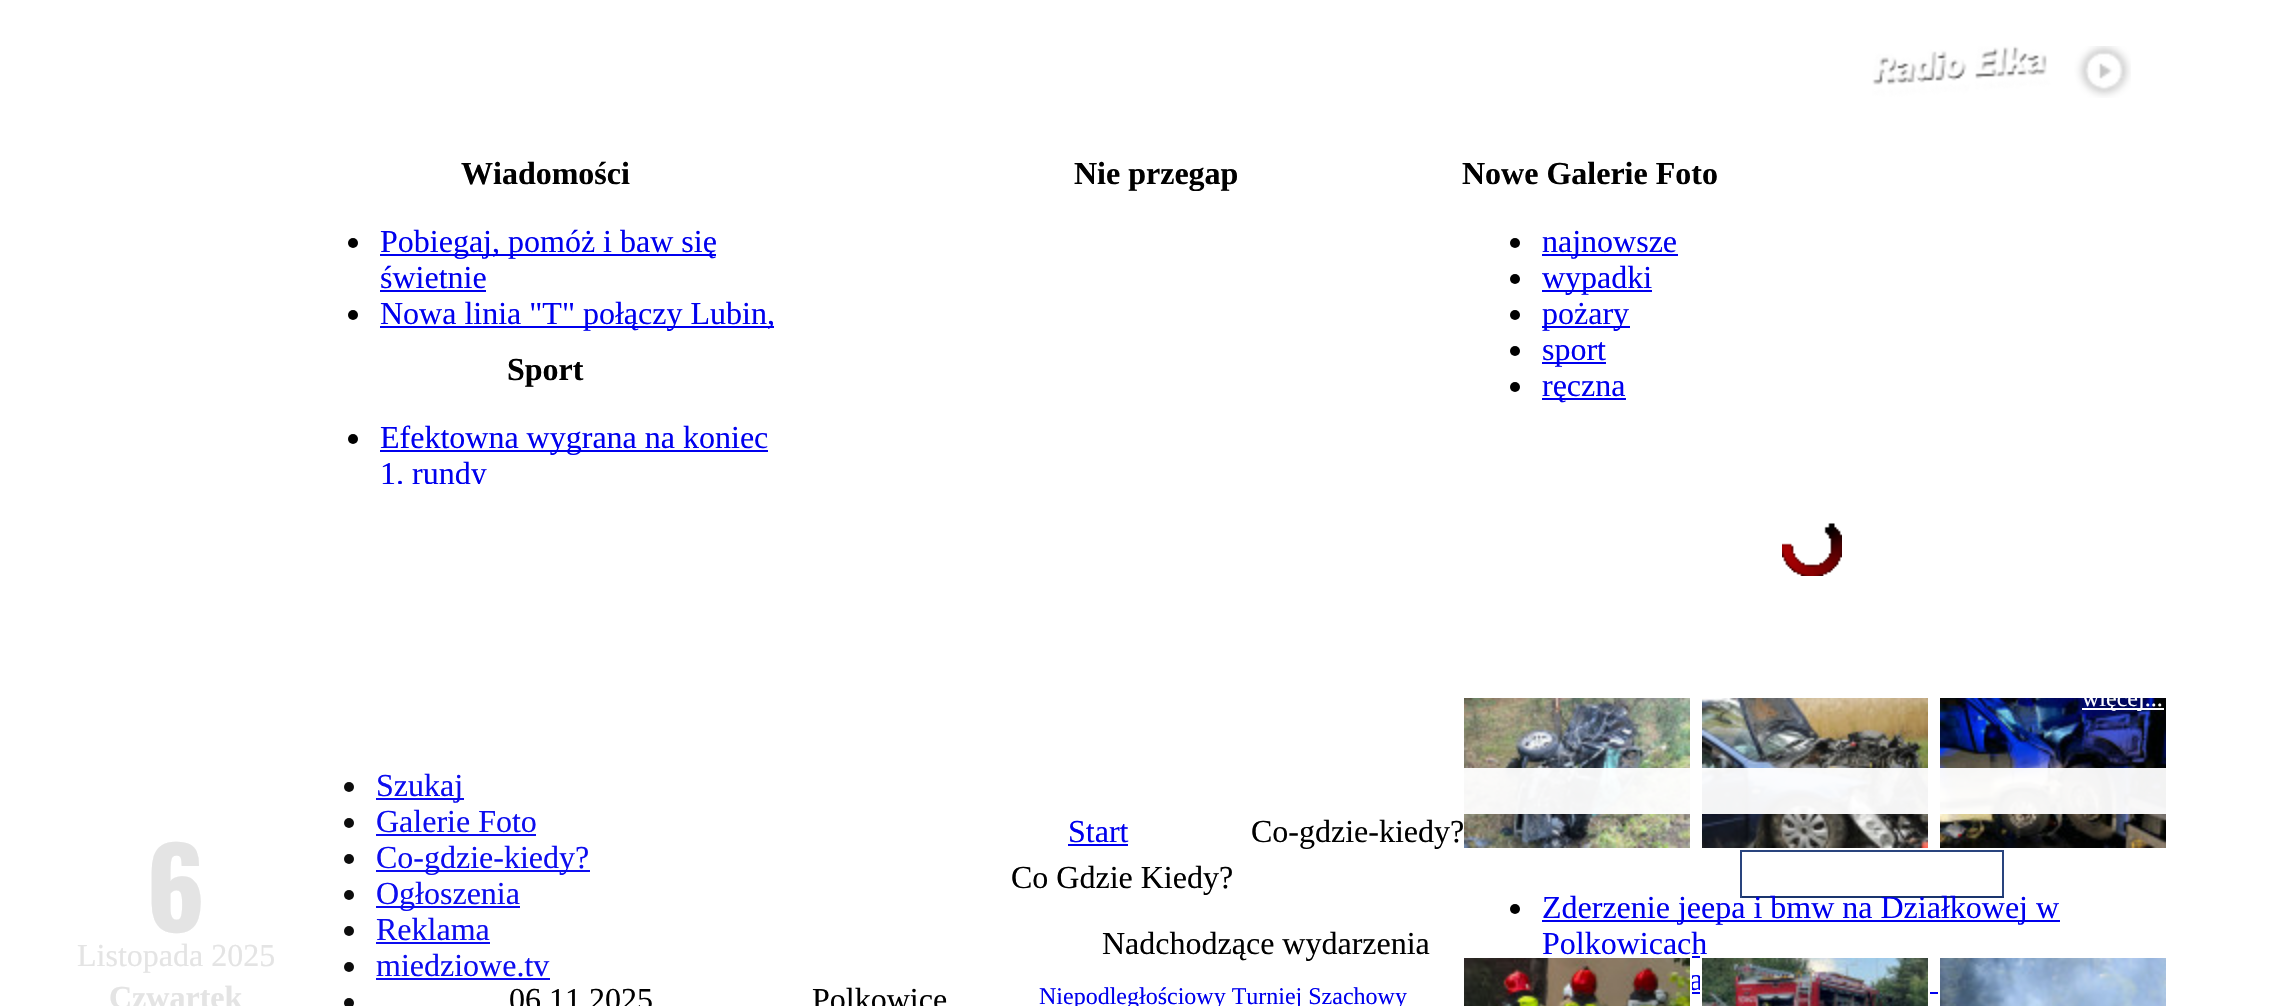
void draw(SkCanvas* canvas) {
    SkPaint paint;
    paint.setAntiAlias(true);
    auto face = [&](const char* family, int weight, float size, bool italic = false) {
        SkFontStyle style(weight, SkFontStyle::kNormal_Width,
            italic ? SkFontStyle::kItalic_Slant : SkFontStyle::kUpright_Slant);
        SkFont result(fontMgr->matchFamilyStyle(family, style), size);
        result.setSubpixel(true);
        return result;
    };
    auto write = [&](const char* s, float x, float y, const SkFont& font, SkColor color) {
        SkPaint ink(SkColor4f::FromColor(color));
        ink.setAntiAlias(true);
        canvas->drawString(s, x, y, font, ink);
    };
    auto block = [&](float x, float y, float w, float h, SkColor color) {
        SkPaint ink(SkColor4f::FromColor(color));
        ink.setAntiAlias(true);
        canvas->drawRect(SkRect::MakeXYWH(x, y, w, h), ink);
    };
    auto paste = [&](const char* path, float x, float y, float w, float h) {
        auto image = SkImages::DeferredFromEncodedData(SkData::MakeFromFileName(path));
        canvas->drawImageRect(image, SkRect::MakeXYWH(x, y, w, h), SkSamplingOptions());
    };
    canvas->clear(SK_ColorWHITE);
    paste("pic1.png", 1872, 46, 259, 52);
    auto kFont1 = face("Liberation Serif", 700, 32);
    write("Wiadomości", 461, 184, kFont1, SK_ColorBLACK);
    paint.setColor(SK_ColorBLACK);
    canvas->drawCircle(353, 243, 5, paint);
    block(380, 254, 336, 2, SkColorSetRGB(0, 0, 238));
    auto kFont2 = face("Liberation Serif", 400, 32);
    write("Pobiegaj, pomóż i baw się", 380, 252, kFont2, SkColorSetRGB(0, 0, 238));
    write("świetnie", 380, 288, kFont2, SkColorSetRGB(0, 0, 238));
    block(380, 290, 106, 2, SkColorSetRGB(0, 0, 238));
    canvas->drawCircle(353, 315, 5, paint);
    block(380, 326, 394, 2, SkColorSetRGB(0, 0, 238));
    write("Nowa linia \"T\" połączy Lubin,", 380, 324, kFont2, SkColorSetRGB(0, 0, 238));
    write("Sport", 507, 380, kFont1, SK_ColorBLACK);
    canvas->drawCircle(353, 439, 5, paint);
    block(380, 450, 388, 2, SkColorSetRGB(0, 0, 238));
    write("Efektowna wygrana na koniec", 380, 448, kFont2, SkColorSetRGB(0, 0, 238));
    canvas->save();
    canvas->clipRect(SkRect::MakeXYWH(300, 388, 490, 96));
    write("1. rundy", 380, 484, kFont2, SkColorSetRGB(0, 0, 238));
    canvas->restore();
    write("Nie przegap", 1074, 184, kFont1, SK_ColorBLACK);
    write("Nowe Galerie Foto", 1462, 184, kFont1, SK_ColorBLACK);
    canvas->drawCircle(1515, 243, 5, paint);
    block(1542, 254, 136, 2, SkColorSetRGB(0, 0, 238));
    write("najnowsze", 1542, 252, kFont2, SkColorSetRGB(0, 0, 238));
    canvas->drawCircle(1515, 279, 5, paint);
    block(1542, 290, 110, 2, SkColorSetRGB(0, 0, 238));
    write("wypadki", 1542, 288, kFont2, SkColorSetRGB(0, 0, 238));
    canvas->drawCircle(1515, 315, 5, paint);
    block(1542, 326, 88, 2, SkColorSetRGB(0, 0, 238));
    write("pożary", 1542, 324, kFont2, SkColorSetRGB(0, 0, 238));
    canvas->drawCircle(1515, 351, 5, paint);
    block(1542, 362, 64, 2, SkColorSetRGB(0, 0, 238));
    write("sport", 1542, 360, kFont2, SkColorSetRGB(0, 0, 238));
    canvas->drawCircle(1515, 387, 5, paint);
    block(1542, 398, 84, 2, SkColorSetRGB(0, 0, 238));
    write("ręczna", 1542, 396, kFont2, SkColorSetRGB(0, 0, 238));
    paste("pic2.png", 1782, 523, 60, 53);
    paste("pic3.png", 1464, 698, 226, 150);
    paste("pic4.png", 1702, 698, 226, 150);
    paste("pic5.png", 1940, 698, 226, 150);
    canvas->drawCircle(1515, 909, 5, paint);
    block(1542, 920, 518, 2, SkColorSetRGB(0, 0, 238));
    block(1740, 850, 264, 2, SkColorSetRGB(41, 68, 126));
    block(2002, 850, 2, 48, SkColorSetRGB(41, 68, 126));
    block(1740, 896, 264, 2, SkColorSetRGB(26, 53, 110));
    block(1740, 850, 2, 48, SkColorSetRGB(41, 68, 126));
    write("Zderzenie jeepa i bmw na Działkowej w", 1542, 918, kFont2, SkColorSetRGB(0, 0, 238));
    write("Polkowicach", 1542, 954, kFont2, SkColorSetRGB(0, 0, 238));
    block(1692, 956, 16, 2, SkColorSetRGB(0, 0, 238));
    write("a", 1689, 990, kFont2, SkColorSetRGB(0, 0, 238));
    block(1692, 992, 246, 2, SkColorSetRGB(0, 0, 238));
    paint.setStyle(SkPaint::kStroke_Style);
    paint.setStrokeWidth(2);
    paint.setColor(SK_ColorWHITE);
    canvas->drawRect(SkRect::MakeXYWH(1463, 957, 228, 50), paint);
    canvas->drawRect(SkRect::MakeXYWH(1701, 957, 228, 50), paint);
    paste("pic6.png", 1464, 958, 226, 48);
    paste("pic7.png", 1702, 958, 226, 48);
    paste("pic8.png", 1940, 958, 226, 48);
    block(2082, 708, 82, 2, SK_ColorWHITE);
    auto kFont3 = face("Liberation Serif", 400, 24);
    write("więcej...", 2082, 706, kFont3, SK_ColorWHITE);
    block(1464, 768, 702, 46, SkColorSetARGB(242, 255, 255, 255));
    paint.setStyle(SkPaint::kFill_Style);
    paint.setColor(SkColorSetRGB(13, 13, 13));
    canvas->drawCircle(349, 787, 5, paint);
    block(376, 798, 88, 2, SkColorSetRGB(13, 13, 239));
    write("Szukaj", 376, 796, kFont2, SkColorSetRGB(13, 13, 239));
    canvas->drawCircle(349, 823, 5, paint);
    write("Galerie Foto", 376, 832, kFont2, SkColorSetRGB(13, 13, 239));
    block(376, 834, 160, 2, SkColorSetRGB(13, 13, 239));
    canvas->drawCircle(349, 859, 5, paint);
    block(376, 870, 214, 2, SkColorSetRGB(13, 13, 239));
    write("Co-gdzie-kiedy?", 376, 868, kFont2, SkColorSetRGB(13, 13, 239));
    canvas->drawCircle(349, 895, 5, paint);
    block(376, 906, 144, 2, SkColorSetRGB(13, 13, 239));
    write("Ogłoszenia", 376, 904, kFont2, SkColorSetRGB(13, 13, 239));
    canvas->drawCircle(349, 931, 5, paint);
    write("Reklama", 376, 940, kFont2, SkColorSetRGB(13, 13, 239));
    block(376, 942, 114, 2, SkColorSetRGB(13, 13, 239));
    canvas->drawCircle(349, 967, 5, paint);
    write("miedziowe.tv", 376, 976, kFont2, SkColorSetRGB(13, 13, 239));
    block(376, 978, 174, 2, SkColorSetRGB(13, 13, 239));
    canvas->drawCircle(349, 1003, 5, paint);
    auto kFont4 = face("Oswald", 700, 110);
    write("6", 146, 932, kFont4, SkColorSetRGB(228, 228, 228));
    write("Listopada 2025", 77, 966, kFont2, SkColorSetRGB(228, 228, 228));
    write("Czwartek", 109, 1008, kFont1, SkColorSetRGB(228, 228, 228));
    write("Start", 1068, 842, kFont2, SkColorSetRGB(0, 0, 238));
    block(1068, 844, 60, 2, SkColorSetRGB(0, 0, 238));
    write("Co-gdzie-kiedy?", 1251, 842, kFont2, SK_ColorBLACK);
    write("Co Gdzie Kiedy?", 1011, 888, kFont2, SK_ColorBLACK);
    write("Nadchodzące wydarzenia", 1102, 954, kFont2, SK_ColorBLACK);
    write("06.11.2025", 509, 1010, kFont2, SK_ColorBLACK);
    write("Polkowice", 812, 1010, kFont2, SK_ColorBLACK);
    write("Niepodległościowy Turniej Szachowy", 1039, 1004, kFont3, SkColorSetRGB(0, 0, 238));
}
